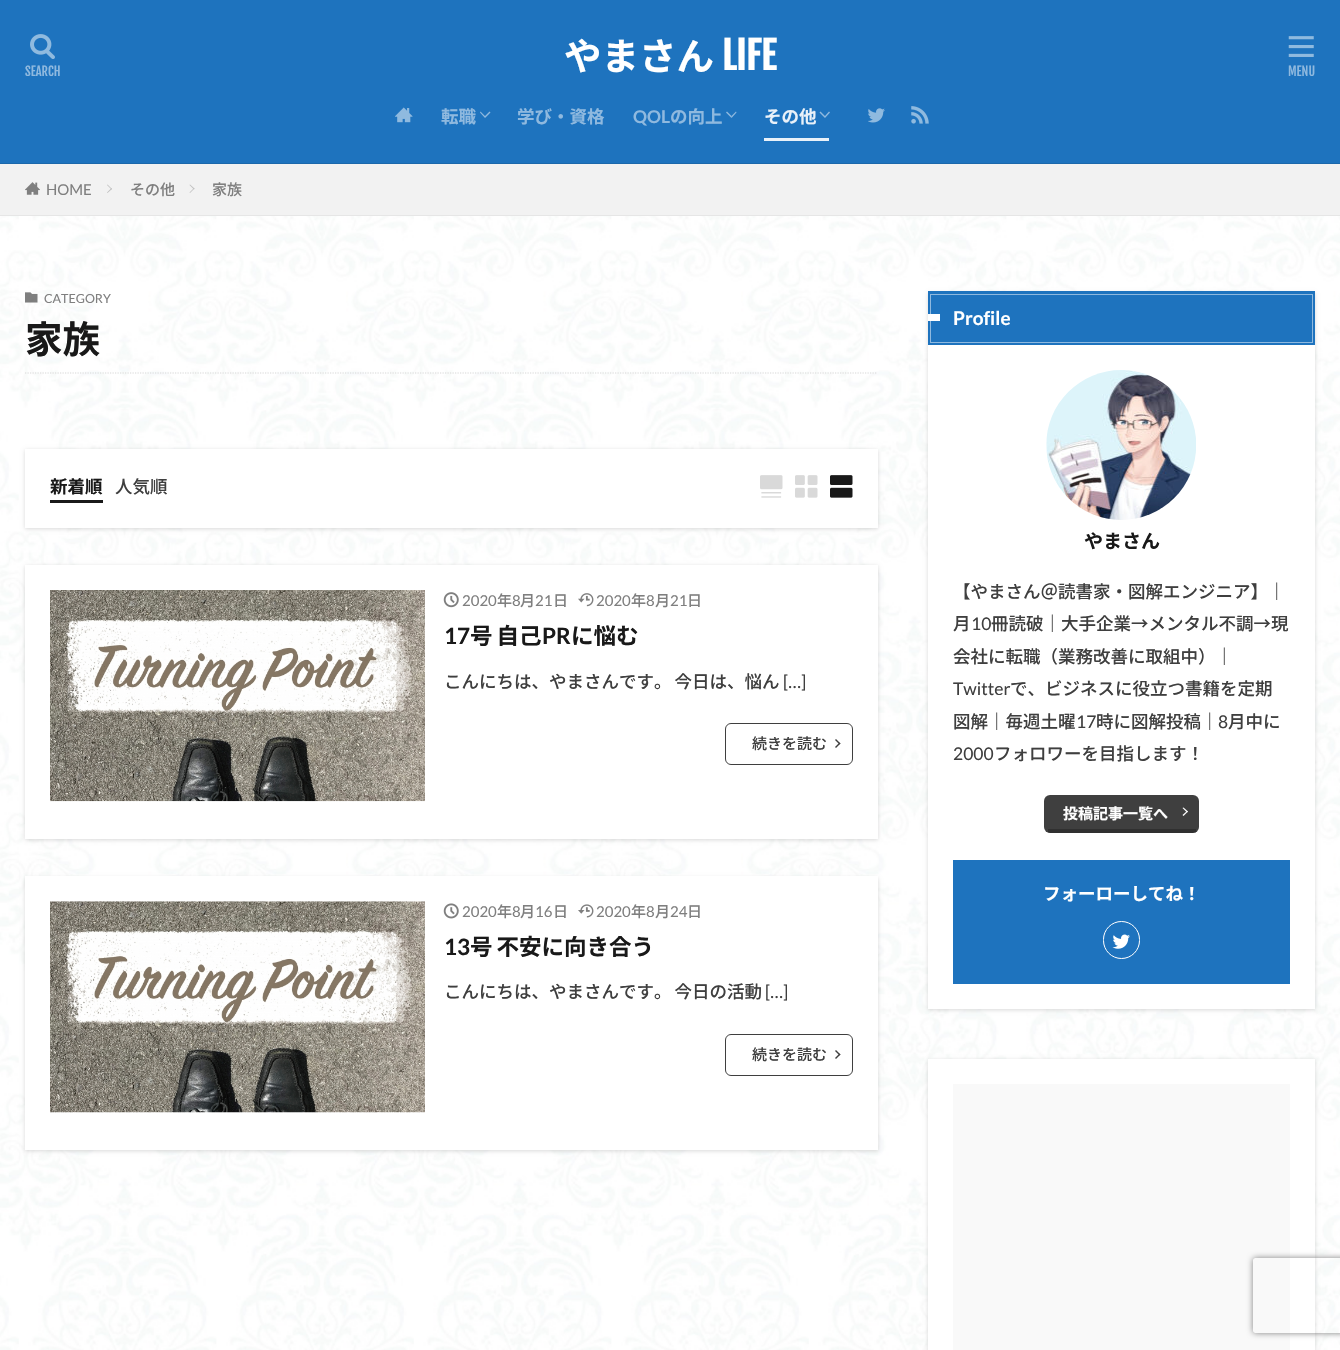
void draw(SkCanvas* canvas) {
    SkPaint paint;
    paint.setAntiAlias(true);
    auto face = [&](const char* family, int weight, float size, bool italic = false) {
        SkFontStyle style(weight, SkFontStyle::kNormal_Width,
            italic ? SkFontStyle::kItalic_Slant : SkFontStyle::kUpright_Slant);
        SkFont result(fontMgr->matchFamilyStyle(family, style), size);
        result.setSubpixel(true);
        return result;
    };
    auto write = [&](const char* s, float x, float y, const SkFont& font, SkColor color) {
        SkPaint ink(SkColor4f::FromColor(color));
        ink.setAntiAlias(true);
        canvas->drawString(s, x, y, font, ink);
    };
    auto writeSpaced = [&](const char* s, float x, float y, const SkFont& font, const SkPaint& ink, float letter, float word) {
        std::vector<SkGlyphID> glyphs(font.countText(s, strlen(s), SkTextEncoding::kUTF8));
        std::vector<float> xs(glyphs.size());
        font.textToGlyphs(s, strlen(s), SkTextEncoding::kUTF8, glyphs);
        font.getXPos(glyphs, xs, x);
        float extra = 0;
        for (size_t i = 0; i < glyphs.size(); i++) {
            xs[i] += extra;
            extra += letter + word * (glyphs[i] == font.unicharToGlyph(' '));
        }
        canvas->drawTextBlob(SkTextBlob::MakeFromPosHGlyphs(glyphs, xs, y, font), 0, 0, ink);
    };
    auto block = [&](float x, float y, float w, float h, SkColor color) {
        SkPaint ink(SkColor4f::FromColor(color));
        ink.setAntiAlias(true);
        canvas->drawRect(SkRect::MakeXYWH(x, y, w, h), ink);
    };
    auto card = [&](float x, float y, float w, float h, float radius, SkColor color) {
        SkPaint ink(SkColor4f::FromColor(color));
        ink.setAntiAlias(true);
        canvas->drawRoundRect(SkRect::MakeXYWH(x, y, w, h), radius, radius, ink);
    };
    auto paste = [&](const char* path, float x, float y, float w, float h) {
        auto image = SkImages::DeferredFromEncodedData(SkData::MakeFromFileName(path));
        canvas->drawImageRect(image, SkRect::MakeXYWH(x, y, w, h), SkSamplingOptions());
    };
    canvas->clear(SK_ColorWHITE);
    paste("pic1.png", 0, 216, 1340, 1134);
    block(0, 0, 1340, 163, SkColorSetRGB(30, 115, 190));
    block(0, 163, 1340, 1, SkColorSetRGB(27, 104, 171));
    paste("pic2.png", 30, 34, 25, 25);
    auto kFont1 = face("Fjalla One", 400, 12.5f);
    write("SEARCH", 25, 76, kFont1, SkColorSetRGB(143, 185, 223));
    auto kFont2 = face("Noto Sans JP", 700, 37.5f);
    write("やまさん", 564, 70, kFont2, SK_ColorWHITE);
    auto kFont3 = face("Fjalla One", 700, 37.5f);
    write("LIFE", 722, 70, kFont3, SK_ColorWHITE);
    paste("pic3.png", 1288, 36, 26, 21);
    write("MENU", 1288, 76, kFont1, SkColorSetRGB(143, 185, 223));
    paste("pic4.png", 395, 107, 18, 16);
    auto kFont4 = face("Noto Sans JP", 700, 17.5f);
    write("転職", 441, 123, kFont4, SkColorSetRGB(143, 185, 223));
    paint.setColor(SkColorSetRGB(143, 185, 223));
    canvas->drawPath(SkPathBuilder().moveTo(490.5f, 112.5f).lineTo(485, 118).lineTo(485, 116).lineTo(489.5f, 111.5f).close().moveTo(485, 118).lineTo(480, 112.5f).lineTo(480.5f, 111.5f).lineTo(485, 116).close().detach(), paint);
    write("学び・資格", 517, 123, kFont4, SkColorSetRGB(143, 185, 223));
    auto kFont5 = face("Lato", 700, 17.5f);
    write("QOL", 633, 123, kFont5, SkColorSetRGB(143, 185, 223));
    write("の向上", 670, 123, kFont4, SkColorSetRGB(143, 185, 223));
    canvas->drawPath(SkPathBuilder().moveTo(736.5f, 112.5f).lineTo(731.5f, 118).lineTo(731.5f, 116).lineTo(736, 111.5f).close().detach(), paint);
    paint.setColor(SkColorSetARGB(128, 255, 255, 255));
    canvas->drawPath(SkPathBuilder().moveTo(731.5f, 118).lineTo(726, 112.5f).lineTo(727, 111.5f).lineTo(731.5f, 116).close().detach(), paint);
    block(764, 138, 65, 3, SkColorSetRGB(233, 241, 249));
    write("その他", 764, 123, kFont4, SkColorSetRGB(233, 241, 249));
    paint.setColor(SkColorSetRGB(143, 185, 223));
    canvas->drawPath(SkPathBuilder().moveTo(830, 112.5f).lineTo(825, 118).lineTo(825, 116).lineTo(829, 111.5f).close().moveTo(825, 118).lineTo(819.5f, 112.5f).lineTo(820.5f, 111.5f).lineTo(825, 116).close().detach(), paint);
    paste("pic5.png", 868, 108, 17, 15);
    paste("pic6.png", 911, 106, 18, 18);
    block(0, 164, 1340, 51, SkColorSetRGB(242, 242, 242));
    block(0, 215, 1340, 1, SkColorSetRGB(230, 230, 230));
    paste("pic7.png", 25, 182, 15, 13);
    auto kFont6 = face("Lato", 400, 15);
    write("HOME", 46, 195, kFont6, SkColorSetRGB(127, 127, 127));
    paint.setColor(SkColorSetRGB(191, 191, 191));
    canvas->drawPath(SkPathBuilder().moveTo(107.5f, 184.5f).lineTo(112, 189).lineTo(111.5f, 189.5f).lineTo(107, 185).close().detach(), paint);
    canvas->drawPath(SkPathBuilder().moveTo(111.5f, 188).lineTo(112, 189).lineTo(107.5f, 193).lineTo(107, 192.5f).close().detach(), paint);
    auto kFont7 = face("Noto Sans JP", 500, 15);
    write("その他", 130, 195, kFont7, SkColorSetRGB(127, 127, 127));
    canvas->drawPath(SkPathBuilder().moveTo(190, 184.5f).lineTo(194.5f, 188.5f).lineTo(194, 189.5f).lineTo(189.5f, 185).close().detach(), paint);
    canvas->drawPath(SkPathBuilder().moveTo(194, 188).lineTo(194.5f, 188.5f).lineTo(190, 193).lineTo(189.5f, 192.5f).close().detach(), paint);
    write("家族", 212, 195, kFont7, SkColorSetRGB(127, 127, 127));
    paste("pic8.png", 25, 292, 13, 11);
    auto kFont8 = face("Lato", 400, 12.5f);
    write("CATEGORY", 44, 303, kFont8, SkColorSetRGB(127, 127, 127));
    paint.setStyle(SkPaint::kStroke_Style);
    paint.setStrokeWidth(1.2f);
    paint.setColor(SkColorSetRGB(216, 216, 216));
    paint.setPathEffect(SkDashPathEffect::Make({{1.25f, 1.25f}}, 0));
    canvas->drawPath(SkPathBuilder().moveTo(25, 373).lineTo(877.5f, 373).detach(), paint);
    paint.setPathEffect(nullptr);
    write("家族", 25, 353, kFont2, SkColorSetRGB(25, 25, 25));
    paint.setStyle(SkPaint::kFill_Style);
    paint.setColor(SkColorSetARGB(38, 0, 0, 0));
    paint.setMaskFilter(SkMaskFilter::MakeBlur(kNormal_SkBlurStyle, 2));
    canvas->drawRect(SkRect::MakeXYWH(25, 450, 853, 79), paint);
    paint.setMaskFilter(nullptr);
    block(25, 449, 853, 79, SK_ColorWHITE);
    write("新着順", 50, 493, kFont4, SkColorSetRGB(25, 25, 25));
    block(50, 500, 53, 3, SkColorSetRGB(25, 25, 25));
    auto kFont9 = face("Noto Sans JP", 500, 17.5f);
    write("人気順", 115, 493, kFont9, SkColorSetRGB(63, 63, 63));
    paste("pic9.png", 760, 475, 23, 23);
    paste("pic10.png", 795, 475, 23, 23);
    paste("pic11.png", 830, 475, 23, 23);
    paint.setMaskFilter(SkMaskFilter::MakeBlur(kNormal_SkBlurStyle, 2));
    canvas->drawRect(SkRect::MakeXYWH(25, 566, 853, 274), paint);
    paint.setMaskFilter(nullptr);
    block(25, 565, 853, 274, SK_ColorWHITE);
    paste("pic12.png", 50, 590, 375, 212);
    paste("pic13.png", 443, 592, 16, 16);
    write("2020", 462, 606, kFont6, SkColorSetRGB(127, 127, 127));
    write("年", 497, 606, kFont7, SkColorSetRGB(127, 127, 127));
    write("8", 512, 606, kFont6, SkColorSetRGB(127, 127, 127));
    write("月", 520, 606, kFont7, SkColorSetRGB(127, 127, 127));
    write("21", 535, 606, kFont6, SkColorSetRGB(127, 127, 127));
    write("日", 553, 606, kFont7, SkColorSetRGB(127, 127, 127));
    paste("pic14.png", 578, 593, 16, 14);
    write("2020", 596, 606, kFont6, SkColorSetRGB(127, 127, 127));
    write("年", 631, 606, kFont7, SkColorSetRGB(127, 127, 127));
    write("8", 646, 606, kFont6, SkColorSetRGB(127, 127, 127));
    write("月", 655, 606, kFont7, SkColorSetRGB(127, 127, 127));
    write("21", 670, 606, kFont6, SkColorSetRGB(127, 127, 127));
    write("日", 687, 606, kFont7, SkColorSetRGB(127, 127, 127));
    auto kFont10 = face("Lato", 700, 22.5f);
    write("17", 444, 644, kFont10, SkColorSetRGB(25, 25, 25));
    auto kFont11 = face("Noto Sans JP", 700, 22.5f);
    paint.setColor(SkColorSetRGB(25, 25, 25));
    writeSpaced("号 自己", 470, 644, kFont11, paint, 0, -1);
    write("PR", 542, 644, kFont10, SkColorSetRGB(25, 25, 25));
    write("に悩む", 571, 644, kFont11, SkColorSetRGB(25, 25, 25));
    paint.setColor(SkColorSetRGB(63, 63, 63));
    writeSpaced("こんにちは、やまさんです。 今日は、悩ん", 444, 688, kFont9, paint, 0, -1);
    auto kFont12 = face("Lato", 400, 17.5f);
    write("[…]", 783, 688, kFont12, SkColorSetRGB(63, 63, 63));
    paint.setStyle(SkPaint::kStroke_Style);
    paint.setStrokeWidth(1);
    canvas->drawRoundRect(SkRect::MakeXYWH(725.5f, 723.5f, 127, 41), 5.5f, 5.5f, paint);
    write("続きを読む", 752, 749, kFont7, SkColorSetRGB(63, 63, 63));
    paint.setStyle(SkPaint::kFill_Style);
    canvas->drawPath(SkPathBuilder().moveTo(836, 739).lineTo(840.5f, 743.5f).lineTo(839.5f, 744.5f).lineTo(835, 740).close().detach(), paint);
    canvas->drawPath(SkPathBuilder().moveTo(839.5f, 742.5f).lineTo(840.5f, 743.5f).lineTo(836, 748).lineTo(835, 747).close().detach(), paint);
    paint.setColor(SkColorSetARGB(38, 0, 0, 0));
    paint.setMaskFilter(SkMaskFilter::MakeBlur(kNormal_SkBlurStyle, 2));
    canvas->drawRect(SkRect::MakeXYWH(25, 878, 853, 273), paint);
    paint.setMaskFilter(nullptr);
    block(25, 876, 853, 274, SK_ColorWHITE);
    paste("pic15.png", 50, 901, 375, 212);
    paste("pic16.png", 443, 903, 16, 16);
    write("2020", 462, 917, kFont6, SkColorSetRGB(127, 127, 127));
    write("年", 497, 917, kFont7, SkColorSetRGB(127, 127, 127));
    write("8", 512, 917, kFont6, SkColorSetRGB(127, 127, 127));
    write("月", 520, 917, kFont7, SkColorSetRGB(127, 127, 127));
    write("16", 535, 917, kFont6, SkColorSetRGB(127, 127, 127));
    write("日", 553, 917, kFont7, SkColorSetRGB(127, 127, 127));
    paste("pic17.png", 578, 904, 16, 14);
    write("2020", 596, 917, kFont6, SkColorSetRGB(127, 127, 127));
    write("年", 631, 917, kFont7, SkColorSetRGB(127, 127, 127));
    write("8", 646, 917, kFont6, SkColorSetRGB(127, 127, 127));
    write("月", 655, 917, kFont7, SkColorSetRGB(127, 127, 127));
    write("24", 670, 917, kFont6, SkColorSetRGB(127, 127, 127));
    write("日", 687, 917, kFont7, SkColorSetRGB(127, 127, 127));
    write("13", 444, 955, kFont10, SkColorSetRGB(25, 25, 25));
    paint.setColor(SkColorSetRGB(25, 25, 25));
    writeSpaced("号 不安に向き合う", 470, 955, kFont11, paint, 0, -1);
    paint.setColor(SkColorSetRGB(63, 63, 63));
    writeSpaced("こんにちは、やまさんです。 今日の活動", 444, 998, kFont9, paint, 0, -1);
    write("[…]", 765, 998, kFont12, SkColorSetRGB(63, 63, 63));
    paint.setStyle(SkPaint::kStroke_Style);
    canvas->drawRoundRect(SkRect::MakeXYWH(725.5f, 1034.5f, 127, 41), 5.5f, 5.5f, paint);
    write("続きを読む", 752, 1060, kFont7, SkColorSetRGB(63, 63, 63));
    paint.setStyle(SkPaint::kFill_Style);
    canvas->drawPath(SkPathBuilder().moveTo(836, 1050).lineTo(840.5f, 1054.5f).lineTo(839.5f, 1055.5f).lineTo(835, 1051).close().detach(), paint);
    canvas->drawPath(SkPathBuilder().moveTo(839.5f, 1053.5f).lineTo(840.5f, 1054.5f).lineTo(836, 1059).lineTo(835, 1058).close().detach(), paint);
    paint.setColor(SkColorSetARGB(38, 0, 0, 0));
    paint.setMaskFilter(SkMaskFilter::MakeBlur(kNormal_SkBlurStyle, 2));
    canvas->drawRect(SkRect::MakeXYWH(928, 293, 387, 717), paint);
    paint.setMaskFilter(nullptr);
    block(928, 345, 387, 664, SK_ColorWHITE);
    block(928, 291, 387, 54, SkColorSetRGB(30, 115, 190));
    paint.setStyle(SkPaint::kStroke_Style);
    paint.setColor(SkColorSetRGB(143, 185, 223));
    canvas->drawRect(SkRect::MakeXYWH(930.5f, 294.5f, 382, 48), paint);
    block(928, 314, 12, 7, SK_ColorWHITE);
    auto kFont13 = face("Lato", 700, 19);
    write("Profile", 953, 325, kFont13, SK_ColorWHITE);
    paste("pic18.png", 1046, 370, 150, 150);
    auto kFont14 = face("Noto Sans JP", 700, 19);
    write("やまさん", 1084, 548, kFont14, SkColorSetRGB(25, 25, 25));
    write("【やまさん＠読書家・図解エンジニア】｜", 953, 598, kFont9, SkColorSetRGB(63, 63, 63));
    write("月", 953, 630, kFont9, SkColorSetRGB(63, 63, 63));
    write("10", 971, 630, kFont12, SkColorSetRGB(63, 63, 63));
    write("冊読破｜大手企業→メンタル不調→現", 991, 630, kFont9, SkColorSetRGB(63, 63, 63));
    write("会社に転職（業務改善に取組中）｜", 953, 663, kFont9, SkColorSetRGB(63, 63, 63));
    write("Twitter", 953, 695, kFont12, SkColorSetRGB(63, 63, 63));
    write("で、ビジネスに役立つ書籍を定期", 1010, 695, kFont9, SkColorSetRGB(63, 63, 63));
    write("図解｜毎週土曜", 953, 728, kFont9, SkColorSetRGB(63, 63, 63));
    write("17", 1076, 728, kFont12, SkColorSetRGB(63, 63, 63));
    write("時に図解投稿｜", 1096, 728, kFont9, SkColorSetRGB(63, 63, 63));
    write("8", 1218, 728, kFont12, SkColorSetRGB(63, 63, 63));
    write("月中に", 1228, 728, kFont9, SkColorSetRGB(63, 63, 63));
    write("2000", 953, 760, kFont12, SkColorSetRGB(63, 63, 63));
    write("フォロワーを目指します！", 994, 760, kFont9, SkColorSetRGB(63, 63, 63));
    card(1044, 795, 155, 38, 6, SkColorSetRGB(63, 63, 63));
    block(1048, 829, 148, 4, SkColorSetARGB(64, 0, 0, 0));
    auto kFont15 = face("Noto Sans JP", 700, 15);
    write("投稿記事一覧へ", 1063, 819, kFont15, SK_ColorWHITE);
    paint.setStyle(SkPaint::kFill_Style);
    paint.setColor(SK_ColorWHITE);
    canvas->drawPath(SkPathBuilder().moveTo(1183.5f, 807.5f).lineTo(1188, 811.5f).lineTo(1187, 812.5f).lineTo(1182.5f, 808).close().detach(), paint);
    canvas->drawPath(SkPathBuilder().moveTo(1187, 811).lineTo(1188, 811.5f).lineTo(1183.5f, 816).lineTo(1182.5f, 815).close().detach(), paint);
    block(953, 860, 337, 124, SkColorSetRGB(30, 115, 190));
    write("フォーローしてね！", 1043, 900, kFont4, SK_ColorWHITE);
    paint.setStyle(SkPaint::kStroke_Style);
    canvas->drawRoundRect(SkRect::MakeXYWH(1103.5f, 921.5f, 36, 37), 18, 18, paint);
    paste("pic19.png", 1112, 934, 18, 15);
    paint.setStyle(SkPaint::kFill_Style);
    paint.setColor(SkColorSetARGB(38, 0, 0, 0));
    paint.setMaskFilter(SkMaskFilter::MakeBlur(kNormal_SkBlurStyle, 2));
    canvas->drawRect(SkRect::MakeXYWH(928, 1060, 387, 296), paint);
    paint.setMaskFilter(nullptr);
    block(928, 1059, 387, 291, SK_ColorWHITE);
    block(953, 1084, 337, 266, SkColorSetRGB(249, 249, 249));
    canvas->save();
    canvas->clipPath(SkPathBuilder(SkPathFillType::kEvenOdd).moveTo(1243, 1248).lineTo(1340, 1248).lineTo(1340, 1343).lineTo(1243, 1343).close().moveTo(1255.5f, 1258).lineTo(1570.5f, 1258).cubicTo(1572, 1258, 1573, 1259, 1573, 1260.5f).lineTo(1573, 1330.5f).cubicTo(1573, 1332, 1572, 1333, 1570.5f, 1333).lineTo(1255.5f, 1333).cubicTo(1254, 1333, 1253, 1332, 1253, 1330.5f).lineTo(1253, 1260.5f).cubicTo(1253, 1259, 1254, 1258, 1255.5f, 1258).close().detach(), true);
    paint.setColor(SkColorSetRGB(128, 128, 128));
    paint.setMaskFilter(SkMaskFilter::MakeBlur(kNormal_SkBlurStyle, 3));
    canvas->drawRoundRect(SkRect::MakeXYWH(1253, 1258, 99, 75), 2.5f, 2.5f, paint);
    paint.setMaskFilter(nullptr);
    canvas->restore();
}
